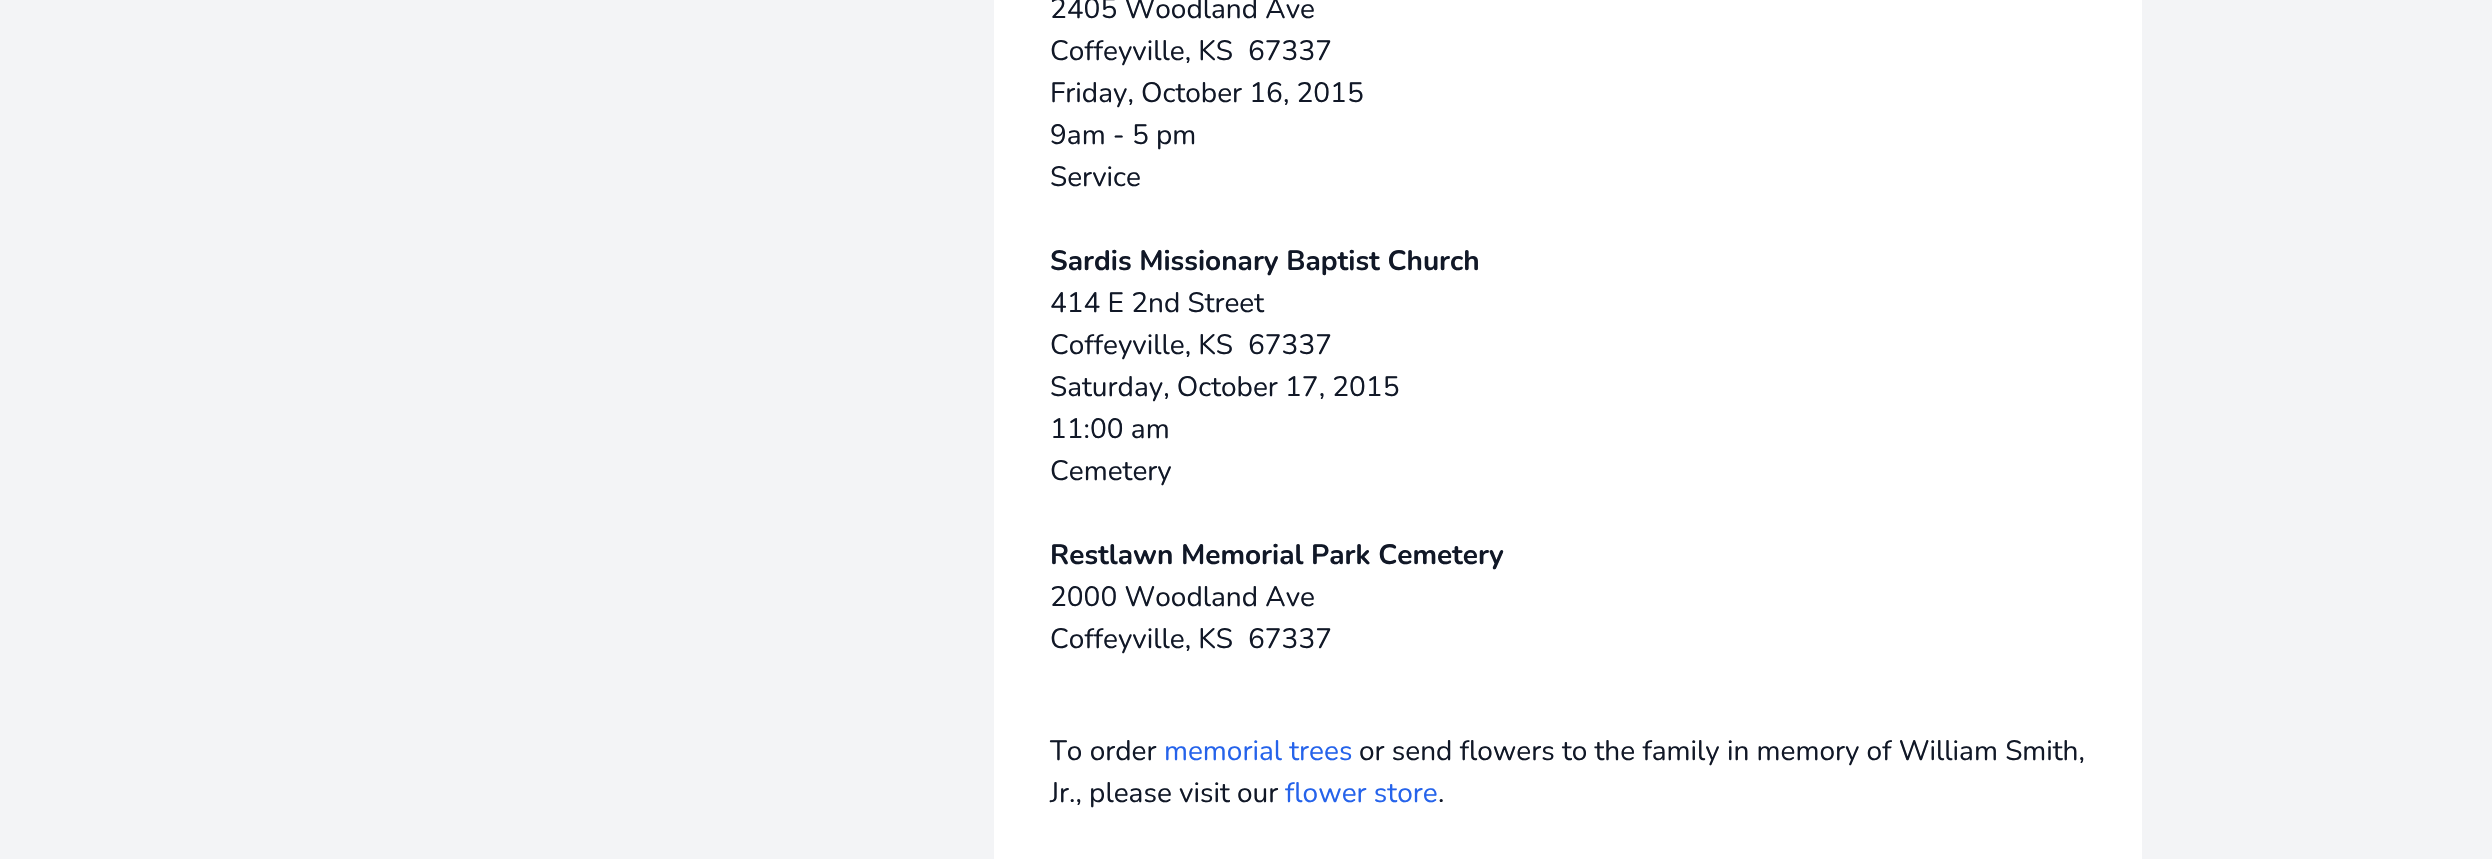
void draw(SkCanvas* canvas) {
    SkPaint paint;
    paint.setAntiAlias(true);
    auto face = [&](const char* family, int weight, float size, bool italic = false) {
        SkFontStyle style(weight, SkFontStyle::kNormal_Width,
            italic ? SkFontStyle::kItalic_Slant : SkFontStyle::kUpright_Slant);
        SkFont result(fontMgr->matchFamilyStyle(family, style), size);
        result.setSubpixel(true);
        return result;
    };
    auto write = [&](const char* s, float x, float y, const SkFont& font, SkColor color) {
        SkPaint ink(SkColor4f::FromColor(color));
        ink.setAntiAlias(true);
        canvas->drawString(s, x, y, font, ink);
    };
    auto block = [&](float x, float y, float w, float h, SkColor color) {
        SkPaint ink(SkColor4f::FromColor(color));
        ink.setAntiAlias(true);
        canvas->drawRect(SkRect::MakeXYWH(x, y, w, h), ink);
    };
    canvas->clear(SkColorSetRGB(243, 244, 246));
    block(994, 0, 1148, 859, SK_ColorWHITE);
    auto kFont1 = face("Nunito", 400, 28);
    write("2405 Woodland Ave", 1050, 18, kFont1, SkColorSetRGB(17, 24, 39));
    write("Coffeyville, KS", 1050, 60, kFont1, SkColorSetRGB(17, 24, 39));
    write("67337", 1248, 60, kFont1, SkColorSetRGB(17, 24, 39));
    write("Friday, October 16, 2015", 1050, 102, kFont1, SkColorSetRGB(17, 24, 39));
    write("9am - 5 pm", 1050, 144, kFont1, SkColorSetRGB(17, 24, 39));
    write("Service", 1050, 186, kFont1, SkColorSetRGB(17, 24, 39));
    auto kFont2 = face("Nunito", 700, 28);
    write("Sardis Missionary Baptist Church", 1050, 270, kFont2, SkColorSetRGB(17, 24, 39));
    write("414 E 2nd Street", 1050, 312, kFont1, SkColorSetRGB(17, 24, 39));
    write("Coffeyville, KS", 1050, 354, kFont1, SkColorSetRGB(17, 24, 39));
    write("67337", 1248, 354, kFont1, SkColorSetRGB(17, 24, 39));
    write("Saturday, October 17, 2015", 1050, 396, kFont1, SkColorSetRGB(17, 24, 39));
    write("11:00 am", 1050, 438, kFont1, SkColorSetRGB(17, 24, 39));
    write("Cemetery", 1050, 480, kFont1, SkColorSetRGB(17, 24, 39));
    write("Restlawn Memorial Park Cemetery", 1050, 564, kFont2, SkColorSetRGB(17, 24, 39));
    write("2000 Woodland Ave", 1050, 606, kFont1, SkColorSetRGB(17, 24, 39));
    write("Coffeyville, KS", 1050, 648, kFont1, SkColorSetRGB(17, 24, 39));
    write("67337", 1248, 648, kFont1, SkColorSetRGB(17, 24, 39));
    write("To order", 1050, 760, kFont1, SkColorSetRGB(17, 24, 39));
    write("memorial trees", 1164, 760, kFont1, SkColorSetRGB(37, 99, 235));
    write("or send flowers to the family in memory of William Smith,", 1359, 760, kFont1, SkColorSetRGB(17, 24, 39));
    write("Jr., please visit our", 1050, 802, kFont1, SkColorSetRGB(17, 24, 39));
    write("flower store", 1285, 802, kFont1, SkColorSetRGB(37, 99, 235));
    write(".", 1438, 802, kFont1, SkColorSetRGB(17, 24, 39));
}
